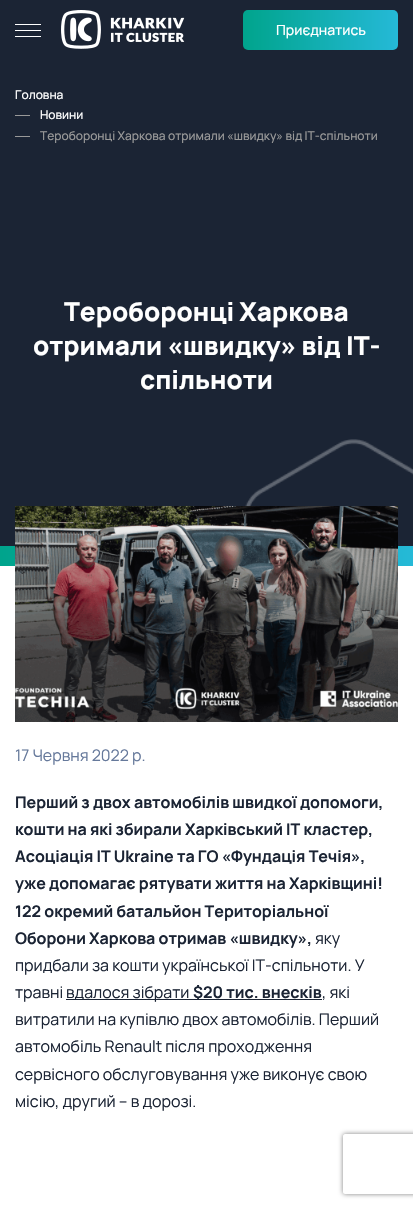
void draw(SkCanvas* canvas) {
    SkPaint paint;
    paint.setAntiAlias(true);
    auto face = [&](const char* family, int weight, float size, bool italic = false) {
        SkFontStyle style(weight, SkFontStyle::kNormal_Width,
            italic ? SkFontStyle::kItalic_Slant : SkFontStyle::kUpright_Slant);
        SkFont result(fontMgr->matchFamilyStyle(family, style), size);
        result.setSubpixel(true);
        return result;
    };
    auto write = [&](const char* s, float x, float y, const SkFont& font, SkColor color) {
        SkPaint ink(SkColor4f::FromColor(color));
        ink.setAntiAlias(true);
        canvas->drawString(s, x, y, font, ink);
    };
    auto block = [&](float x, float y, float w, float h, SkColor color) {
        SkPaint ink(SkColor4f::FromColor(color));
        ink.setAntiAlias(true);
        canvas->drawRect(SkRect::MakeXYWH(x, y, w, h), ink);
    };
    auto paste = [&](const char* path, float x, float y, float w, float h) {
        auto image = SkImages::DeferredFromEncodedData(SkData::MakeFromFileName(path));
        canvas->drawImageRect(image, SkRect::MakeXYWH(x, y, w, h), SkSamplingOptions());
    };
    canvas->clear(SK_ColorWHITE);
    block(0, 0, 413, 546, SkColorSetRGB(27, 36, 52));
    block(15, 30, 26, 1, SK_ColorWHITE);
    block(15, 24, 26, 1, SK_ColorWHITE);
    block(15, 36, 26, 1, SK_ColorWHITE);
    paste("pic1.png", 61, 10, 124, 39);
    {
        const SkColor colors[] = {SkColorSetRGB(0, 164, 140), SkColorSetRGB(37, 185, 215)};
        const float stops[] = {0, 1};
        const SkPoint ends[] = {{243, 30}, {398, 30}};
        paint.setShader(SkGradientShader::MakeLinear(ends, colors, stops, 2, SkTileMode::kClamp));
        paint.setAlpha(255);
    }
    canvas->drawRoundRect(SkRect::MakeXYWH(243, 10, 155, 40), 5, 5, paint);
    auto kFont1 = face("Manrope", 500, 14);
    write("Приєднатись", 276, 35, kFont1, SK_ColorWHITE);
    paste("pic2.png", 245, 439, 168, 67);
    auto kFont2 = face("Manrope", 500, 12);
    write("Головна", 15, 99, kFont2, SK_ColorWHITE);
    block(15, 115, 15, 1, SkColorSetRGB(153, 153, 153));
    write("Новини", 40, 119, kFont2, SK_ColorWHITE);
    block(15, 136, 15, 1, SkColorSetRGB(153, 153, 153));
    write("Тероборонці Харкова отримали «швидку» від ІТ-спільноти", 40, 140, kFont2, SkColorSetRGB(153, 153, 153));
    auto kFont3 = face("Manrope", 800, 26);
    write("Тероборонці Харкова", 64, 321, kFont3, SK_ColorWHITE);
    write("отримали «швидку» від ІТ-", 33, 355, kFont3, SK_ColorWHITE);
    write("спільноти", 140, 389, kFont3, SK_ColorWHITE);
    {
        const SkColor colors[] = {SkColorSetRGB(0, 164, 140), SkColorSetRGB(37, 185, 215)};
        const float stops[] = {0, 1};
        const SkPoint ends[] = {{0, 556}, {413, 556}};
        paint.setShader(SkGradientShader::MakeLinear(ends, colors, stops, 2, SkTileMode::kClamp));
        paint.setAlpha(255);
    }
    canvas->drawRect(SkRect::MakeXYWH(0, 546, 413, 20), paint);
    paste("pic3.png", 15, 506, 383, 216);
    auto kFont4 = face("Manrope", 400, 16);
    write("17 Червня 2022 р.", 15, 761, kFont4, SkColorSetRGB(102, 121, 155));
    auto kFont5 = face("Manrope", 700, 16);
    write("Перший з двох автомобілів швидкої допомоги,", 15, 808, kFont5, SkColorSetRGB(27, 36, 52));
    write("кошти на які збирали Харківський ІТ кластер,", 15, 835, kFont5, SkColorSetRGB(27, 36, 52));
    write("Асоціація IT Ukraine та ГО «Фундація Течія»,", 15, 862, kFont5, SkColorSetRGB(27, 36, 52));
    write("уже допомагає рятувати життя на Харківщині!", 15, 889, kFont5, SkColorSetRGB(27, 36, 52));
    write("122 окремий батальйон Територіальної", 15, 917, kFont5, SkColorSetRGB(27, 36, 52));
    write("Оборони Харкова отримав «швидку»,", 15, 944, kFont5, SkColorSetRGB(27, 36, 52));
    write("яку", 315, 944, kFont4, SkColorSetRGB(27, 36, 52));
    write("придбали за кошти української ІТ-спільноти. У", 15, 971, kFont4, SkColorSetRGB(27, 36, 52));
    write("травні", 15, 998, kFont4, SkColorSetRGB(27, 36, 52));
    block(66, 999, 256, 1, SkColorSetRGB(27, 36, 52));
    write("вдалося зібрати", 66, 998, kFont4, SkColorSetRGB(27, 36, 52));
    write("$20 тис. внесків", 193, 998, kFont5, SkColorSetRGB(27, 36, 52));
    write(", які", 322, 998, kFont4, SkColorSetRGB(27, 36, 52));
    write("витратили на купівлю двох автомобілів. Перший", 15, 1025, kFont4, SkColorSetRGB(27, 36, 52));
    write("автомобіль Renault після проходження", 15, 1052, kFont4, SkColorSetRGB(27, 36, 52));
    write("сервісного обслуговування уже виконує свою", 15, 1080, kFont4, SkColorSetRGB(27, 36, 52));
    write("місію, другий – в дорозі.", 15, 1107, kFont4, SkColorSetRGB(27, 36, 52));
    canvas->save();
    canvas->clipPath(SkPathBuilder(SkPathFillType::kEvenOdd).moveTo(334, 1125).lineTo(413, 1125).lineTo(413, 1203).lineTo(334, 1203).close().moveTo(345, 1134).lineTo(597, 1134).cubicTo(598, 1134, 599, 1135, 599, 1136).lineTo(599, 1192).cubicTo(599, 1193, 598, 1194, 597, 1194).lineTo(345, 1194).cubicTo(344, 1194, 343, 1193, 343, 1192).lineTo(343, 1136).cubicTo(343, 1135, 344, 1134, 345, 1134).close().detach(), true);
    paint.setShader(nullptr);
    paint.setColor(SkColorSetRGB(128, 128, 128));
    paint.setMaskFilter(SkMaskFilter::MakeBlur(kNormal_SkBlurStyle, 2.5f));
    canvas->drawRoundRect(SkRect::MakeXYWH(343, 1134, 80, 60), 2, 2, paint);
    paint.setMaskFilter(nullptr);
    canvas->restore();
}
